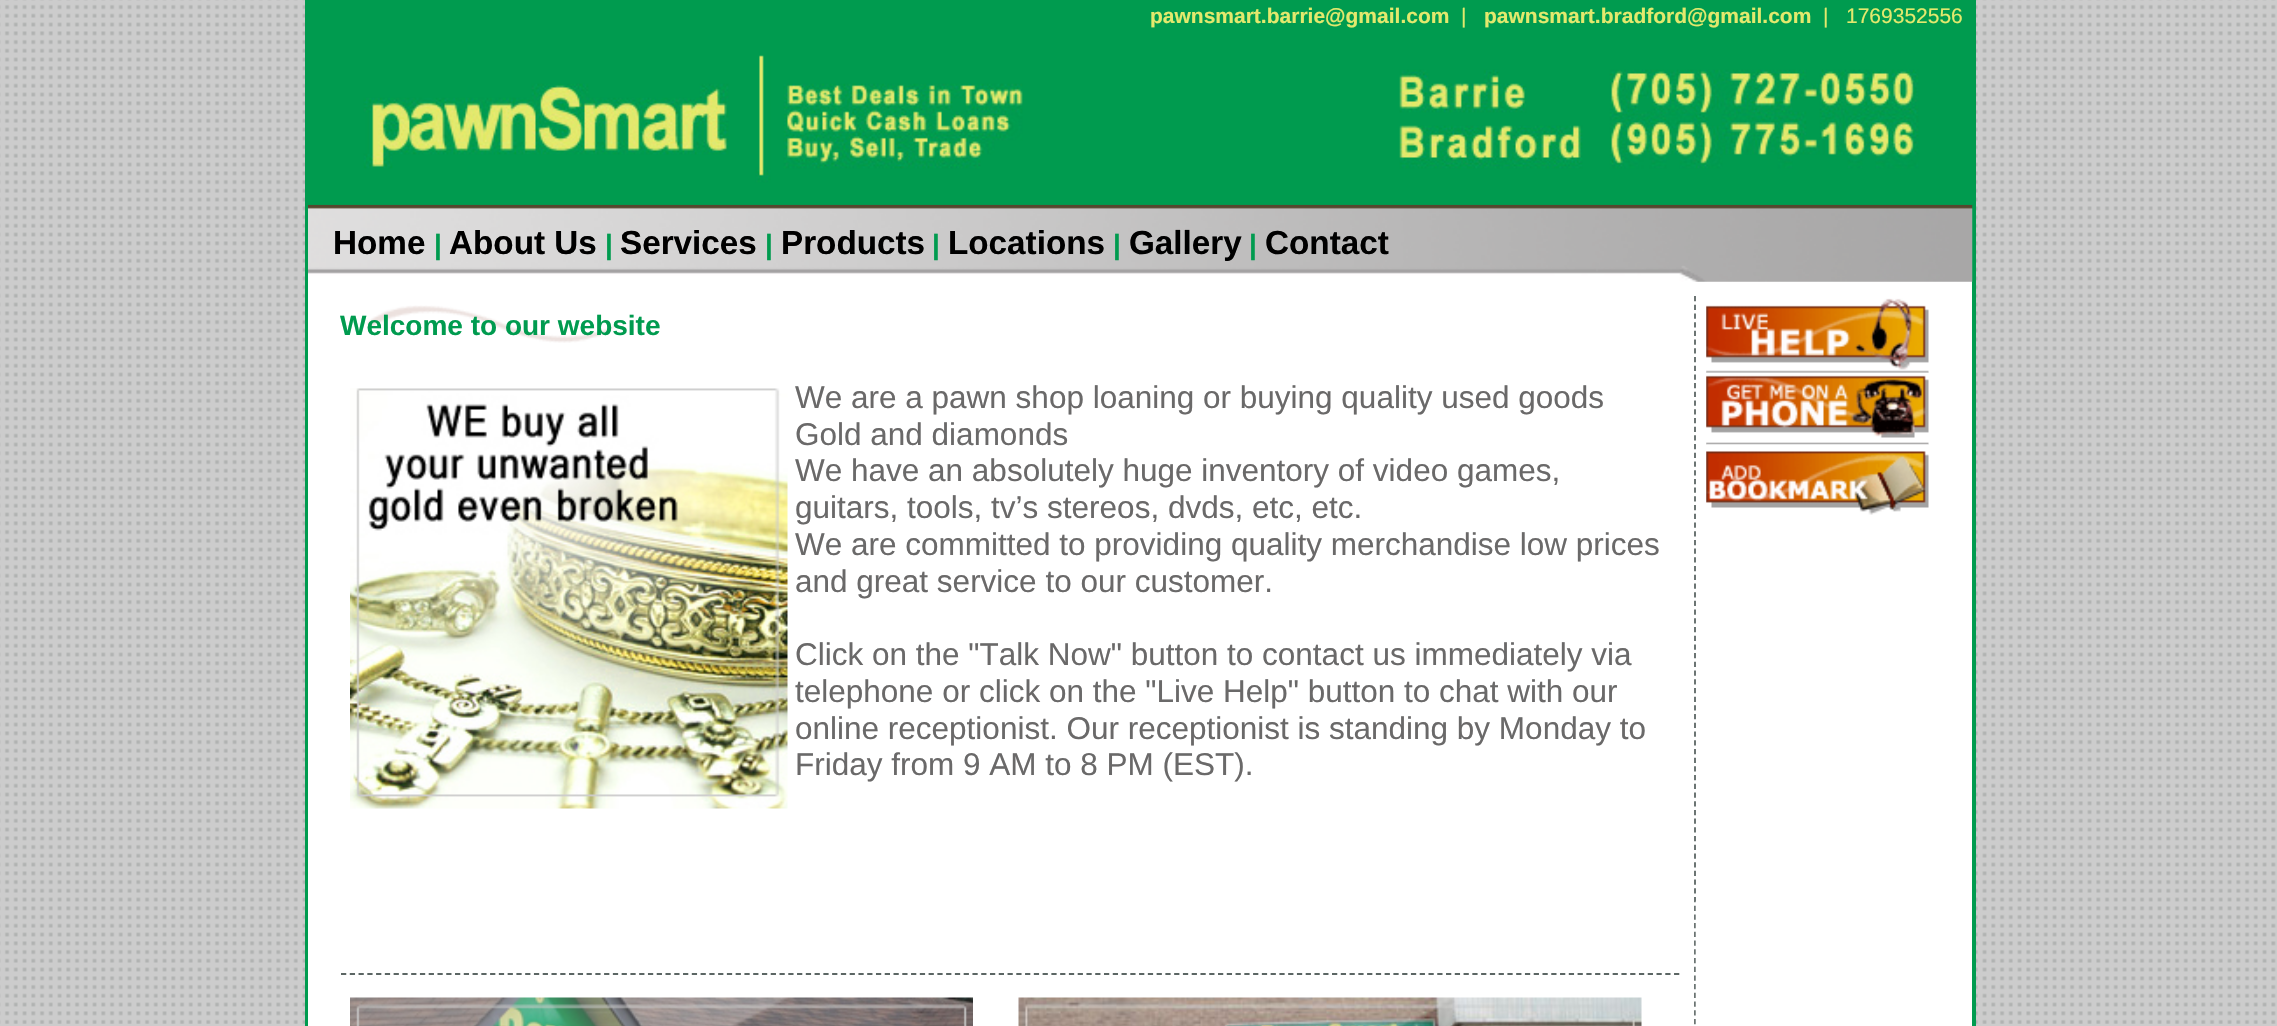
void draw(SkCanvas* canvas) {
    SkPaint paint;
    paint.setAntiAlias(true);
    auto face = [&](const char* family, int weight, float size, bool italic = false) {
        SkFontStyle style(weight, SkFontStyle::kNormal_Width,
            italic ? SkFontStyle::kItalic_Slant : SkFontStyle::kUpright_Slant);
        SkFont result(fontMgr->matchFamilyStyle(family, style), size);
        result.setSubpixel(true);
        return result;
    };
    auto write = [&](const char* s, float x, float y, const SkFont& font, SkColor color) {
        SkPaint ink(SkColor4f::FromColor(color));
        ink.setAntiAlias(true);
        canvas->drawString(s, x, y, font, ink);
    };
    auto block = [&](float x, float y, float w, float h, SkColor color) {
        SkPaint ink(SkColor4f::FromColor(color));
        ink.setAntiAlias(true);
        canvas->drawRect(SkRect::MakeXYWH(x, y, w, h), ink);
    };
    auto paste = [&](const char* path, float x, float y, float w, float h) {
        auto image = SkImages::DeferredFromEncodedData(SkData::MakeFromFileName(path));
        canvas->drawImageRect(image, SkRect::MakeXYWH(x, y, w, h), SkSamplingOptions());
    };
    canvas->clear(SkColorSetRGB(204, 204, 204));
    paste("pic1.png", 0, 0, 2276, 1024);
    block(308, 281, 1664, 745, SK_ColorWHITE);
    paint.setStyle(SkPaint::kStroke_Style);
    paint.setStrokeWidth(2);
    paint.setColor(SkColorSetRGB(0, 155, 79));
    canvas->drawRect(SkRect::MakeXYWH(306, 1, 1669, 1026), paint);
    canvas->drawRect(SkRect::MakeXYWH(307, 3, 1666, 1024), paint);
    block(308, 4, 1664, 201, SkColorSetRGB(0, 155, 79));
    auto kFont1 = face("Liberation Sans", 700, 21);
    write("pawnsmart.barrie@gmail.com", 1150, 23, kFont1, SkColorSetRGB(227, 233, 109));
    auto kFont2 = face("Liberation Sans", 400, 21);
    write("|", 1461, 23, kFont2, SkColorSetRGB(227, 233, 109));
    write("pawnsmart.bradford@gmail.com", 1484, 23, kFont1, SkColorSetRGB(227, 233, 109));
    write("|", 1823, 23, kFont2, SkColorSetRGB(227, 233, 109));
    write("1769352556", 1846, 23, kFont2, SkColorSetRGB(227, 233, 109));
    paste("pic3.png", 308, 204, 1665, 78);
    paste("pic2.png", 308, 55, 1664, 150);
    auto kFont3 = face("Liberation Sans", 700, 33.25f);
    write("Home", 333, 254, kFont3, SK_ColorBLACK);
    auto kFont4 = face("Liberation Sans", 700, 28);
    write("|", 434, 254, kFont4, SkColorSetRGB(0, 155, 79));
    write("About Us", 449, 254, kFont3, SK_ColorBLACK);
    write("|", 605, 254, kFont4, SkColorSetRGB(0, 155, 79));
    write("Services", 620, 254, kFont3, SK_ColorBLACK);
    write("|", 765, 254, kFont4, SkColorSetRGB(0, 155, 79));
    write("Products", 781, 254, kFont3, SK_ColorBLACK);
    write("|", 932, 254, kFont4, SkColorSetRGB(0, 155, 79));
    write("Locations", 948, 254, kFont3, SK_ColorBLACK);
    write("|", 1113, 254, kFont4, SkColorSetRGB(0, 155, 79));
    write("Gallery", 1129, 254, kFont3, SK_ColorBLACK);
    write("|", 1249, 254, kFont4, SkColorSetRGB(0, 155, 79));
    write("Contact", 1265, 254, kFont3, SK_ColorBLACK);
    paste("pic4.png", 367, 305, 252, 38);
    write("Welcome to our website", 340, 335, kFont4, SkColorSetRGB(0, 155, 79));
    paint.setStrokeWidth(1.8f);
    paint.setColor(SkColorSetRGB(92, 102, 100));
    paint.setPathEffect(SkDashPathEffect::Make({{5.25f, 3.46f}}, 0));
    canvas->drawPath(SkPathBuilder().moveTo(1695, 296).lineTo(1695, 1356).detach(), paint);
    paint.setPathEffect(nullptr);
    paste("pic5.png", 1706, 298, 223, 75);
    paste("pic6.png", 1706, 372, 223, 73);
    paste("pic7.png", 1706, 444, 223, 71);
    paste("pic8.png", 1695, 901, 1, 124);
    paint.setPathEffect(SkDashPathEffect::Make({{5.25f, 3.52f}}, 0));
    canvas->drawPath(SkPathBuilder().moveTo(341, 974).lineTo(1680, 974).detach(), paint);
    paint.setPathEffect(nullptr);
    paste("pic9.png", 350, 388, 438, 421);
    auto kFont5 = face("Liberation Sans", 400, 31.5f);
    write("We are a pawn shop loaning or buying quality used goods", 795, 408, kFont5, SkColorSetRGB(106, 105, 105));
    write("Gold and diamonds", 795, 445, kFont5, SkColorSetRGB(106, 105, 105));
    write("We have an absolutely huge inventory of video games,", 795, 481, kFont5, SkColorSetRGB(106, 105, 105));
    write("guitars, tools, tv’s stereos, dvds, etc, etc.", 795, 518, kFont5, SkColorSetRGB(106, 105, 105));
    write("We are committed to providing quality merchandise low prices", 795, 555, kFont5, SkColorSetRGB(106, 105, 105));
    write("and great service to our customer.", 795, 592, kFont5, SkColorSetRGB(106, 105, 105));
    write("Click on the \"Talk Now\" button to contact us immediately via", 795, 665, kFont5, SkColorSetRGB(106, 105, 105));
    write("telephone or click on the \"Live Help\" button to chat with our", 795, 702, kFont5, SkColorSetRGB(106, 105, 105));
    write("online receptionist. Our receptionist is standing by Monday to", 795, 739, kFont5, SkColorSetRGB(106, 105, 105));
    write("Friday from 9 AM to 8 PM (EST).", 795, 775, kFont5, SkColorSetRGB(106, 105, 105));
    paste("pic10.png", 350, 997, 623, 29);
    paste("pic11.png", 1018, 997, 624, 29);
}
